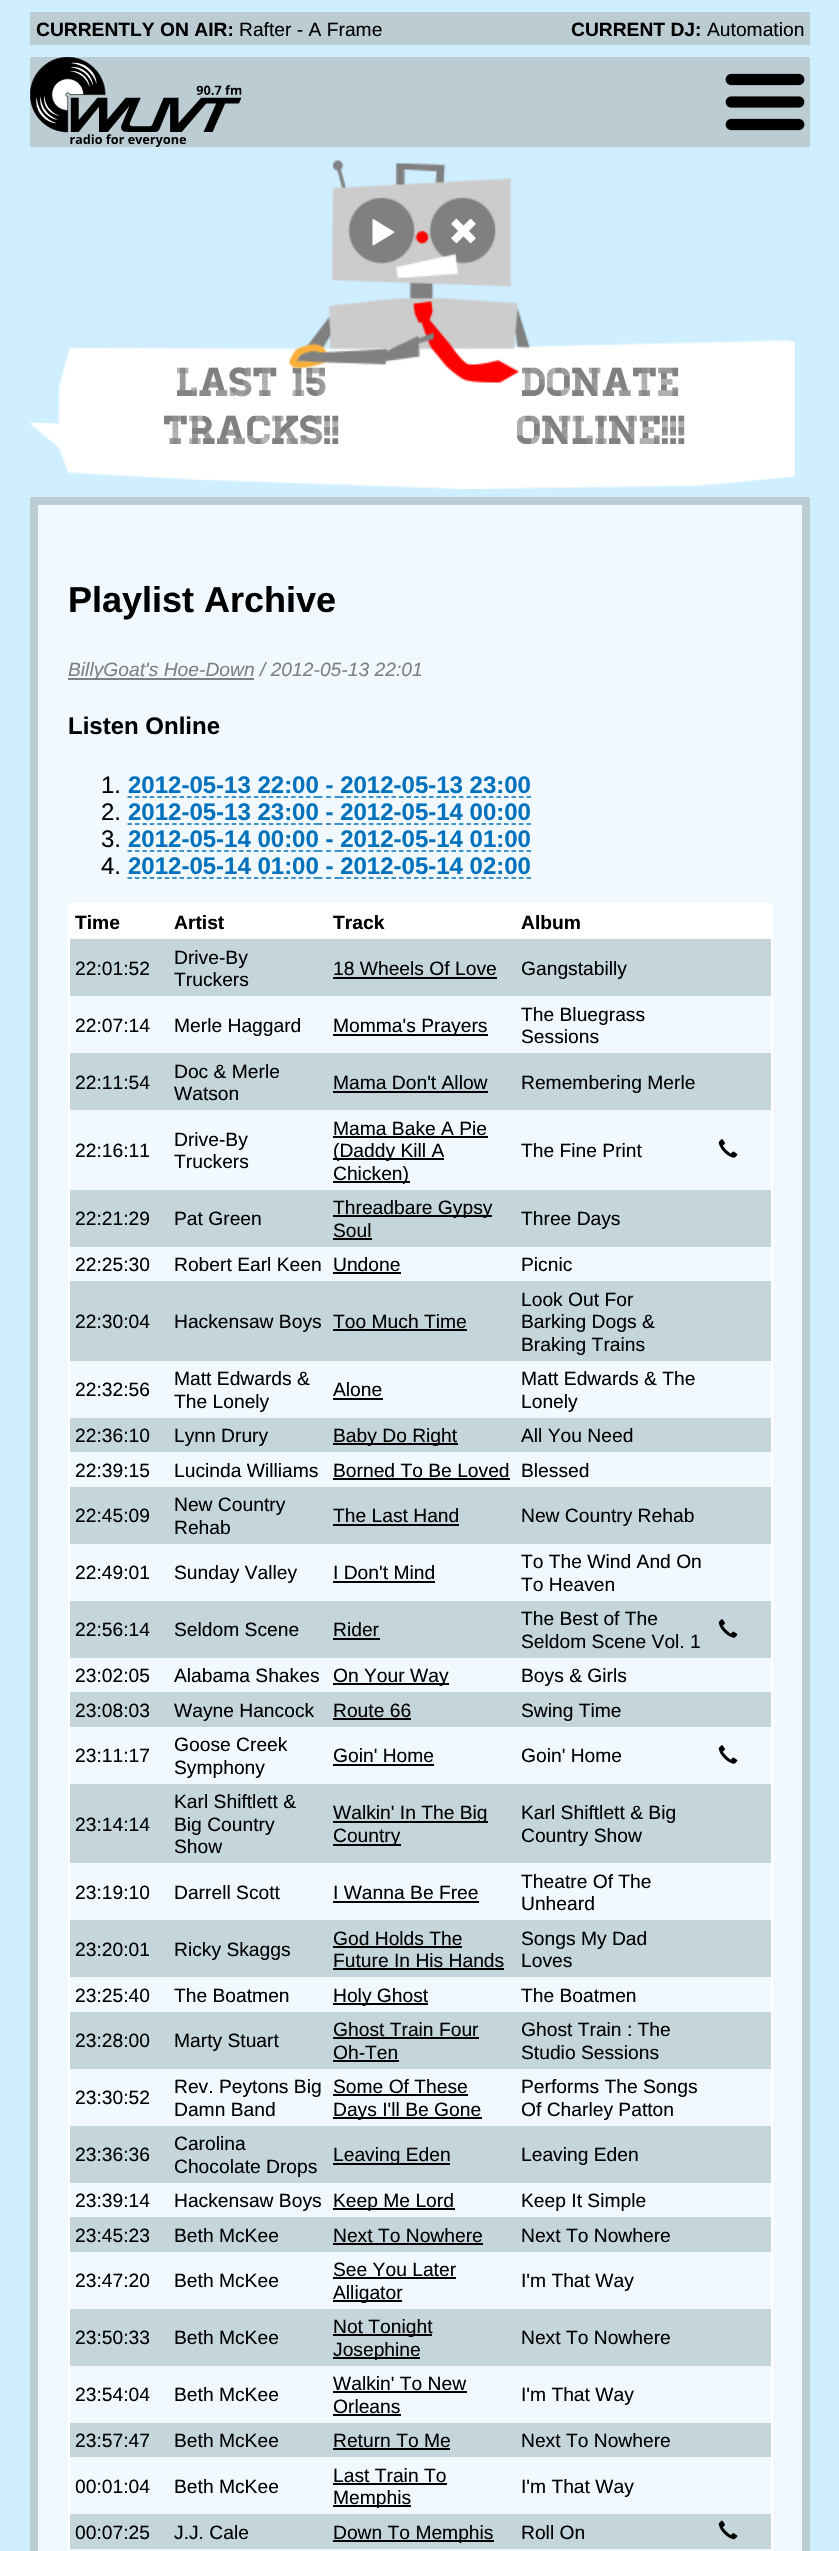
void draw(SkCanvas* canvas) {
    SkPaint paint;
    paint.setAntiAlias(true);
    auto face = [&](const char* family, int weight, float size, bool italic = false) {
        SkFontStyle style(weight, SkFontStyle::kNormal_Width,
            italic ? SkFontStyle::kItalic_Slant : SkFontStyle::kUpright_Slant);
        SkFont result(fontMgr->matchFamilyStyle(family, style), size);
        result.setSubpixel(true);
        return result;
    };
    auto write = [&](const char* s, float x, float y, const SkFont& font, SkColor color) {
        SkPaint ink(SkColor4f::FromColor(color));
        ink.setAntiAlias(true);
        canvas->drawString(s, x, y, font, ink);
    };
    auto block = [&](float x, float y, float w, float h, SkColor color) {
        SkPaint ink(SkColor4f::FromColor(color));
        ink.setAntiAlias(true);
        canvas->drawRect(SkRect::MakeXYWH(x, y, w, h), ink);
    };
    auto paste = [&](const char* path, float x, float y, float w, float h) {
        auto image = SkImages::DeferredFromEncodedData(SkData::MakeFromFileName(path));
        canvas->drawImageRect(image, SkRect::MakeXYWH(x, y, w, h), SkSamplingOptions());
    };
    canvas->clear(SkColorSetRGB(207, 238, 255));
    block(30, 12, 780, 33, SkColorSetRGB(188, 204, 211));
    auto kFont1 = face("Liberation Sans", 700, 19.25f);
    write("CURRENTLY ON AIR:", 36, 36, kFont1, SK_ColorBLACK);
    auto kFont2 = face("Liberation Sans", 400, 19.25f);
    write("Rafter - A Frame", 239, 36, kFont2, SK_ColorBLACK);
    write("CURRENT DJ:", 571, 36, kFont1, SK_ColorBLACK);
    write("Automation", 707, 36, kFont2, SK_ColorBLACK);
    block(30, 57, 780, 90, SkColorSetRGB(188, 204, 211));
    paste("pic1.png", 30, 57, 212, 90);
    paste("pic2.png", 725, 73, 80, 58);
    paste("pic6.png", 29, 340, 766, 149);
    auto kFont3 = face("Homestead", 400, 40.5f);
    write("LAST 15", 177, 396, kFont3, SkColorSetRGB(128, 128, 128));
    write("DONATE", 522, 396, kFont3, SkColorSetRGB(128, 128, 128));
    paste("pic3.png", 289, 160, 241, 223);
    paste("pic4.png", 372, 219, 23, 27);
    paste("pic5.png", 451, 218, 25, 26);
    write("TRACKS!!", 164, 444, kFont3, SkColorSetRGB(128, 128, 128));
    write("ONLINE!!!", 517, 444, kFont3, SkColorSetRGB(128, 128, 128));
    paint.setColor(SkColorSetRGB(241, 249, 255));
    canvas->drawRect(SkRect::MakeXYWH(34, 501, 772, 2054), paint);
    paint.setStyle(SkPaint::kStroke_Style);
    paint.setStrokeWidth(8);
    paint.setColor(SkColorSetRGB(188, 204, 211));
    canvas->drawRect(SkRect::MakeXYWH(34, 501, 772, 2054), paint);
    auto kFont4 = face("Liberation Sans", 700, 36);
    write("Playlist Archive", 68, 612, kFont4, SK_ColorBLACK);
    block(68, 678, 186, 2, SkColorSetRGB(128, 128, 128));
    auto kFont5 = face("Liberation Sans", 400, 19.25f, true);
    write("BillyGoat's Hoe-Down / 2012-05-13 22:01", 68, 676, kFont5, SkColorSetRGB(128, 128, 128));
    auto kFont6 = face("Liberation Sans", 700, 24);
    write("Listen Online", 68, 734, kFont6, SK_ColorBLACK);
    auto kFont7 = face("Liberation Sans", 400, 24);
    write("1.", 101, 793, kFont7, SK_ColorBLACK);
    write("2012-05-13 22:00 - 2012-05-13 23:00", 128, 793, kFont6, SkColorSetRGB(0, 113, 188));
    paint.setStrokeWidth(1.5f);
    paint.setColor(SkColorSetRGB(0, 113, 188));
    paint.setPathEffect(SkDashPathEffect::Make({{4.5f, 2.94f}}, 0));
    canvas->drawPath(SkPathBuilder().moveTo(127.5f, 797).lineTo(318, 797).detach(), paint);
    paint.setPathEffect(nullptr);
    canvas->drawPath(SkPathBuilder().moveTo(318, 797).lineTo(322.5f, 797).moveTo(326, 797).lineTo(331, 797).moveTo(334.5f, 797).lineTo(339, 797).detach(), paint);
    paint.setPathEffect(SkDashPathEffect::Make({{4.5f, 3}}, 0));
    canvas->drawPath(SkPathBuilder().moveTo(339, 797).lineTo(531, 797).detach(), paint);
    paint.setPathEffect(nullptr);
    write("2.", 101, 820, kFont7, SK_ColorBLACK);
    write("2012-05-13 23:00 - 2012-05-14 00:00", 128, 820, kFont6, SkColorSetRGB(0, 113, 188));
    paint.setPathEffect(SkDashPathEffect::Make({{4.5f, 2.94f}}, 0));
    canvas->drawPath(SkPathBuilder().moveTo(127.5f, 824).lineTo(318, 824).detach(), paint);
    paint.setPathEffect(nullptr);
    canvas->drawPath(SkPathBuilder().moveTo(318, 824).lineTo(322.5f, 824).moveTo(326, 824).lineTo(331, 824).moveTo(334.5f, 824).lineTo(339, 824).detach(), paint);
    paint.setPathEffect(SkDashPathEffect::Make({{4.5f, 3}}, 0));
    canvas->drawPath(SkPathBuilder().moveTo(339, 824).lineTo(531, 824).detach(), paint);
    paint.setPathEffect(nullptr);
    write("3.", 101, 847, kFont7, SK_ColorBLACK);
    write("2012-05-14 00:00 - 2012-05-14 01:00", 128, 847, kFont6, SkColorSetRGB(0, 113, 188));
    paint.setPathEffect(SkDashPathEffect::Make({{4.5f, 2.94f}}, 0));
    canvas->drawPath(SkPathBuilder().moveTo(127.5f, 851).lineTo(318, 851).detach(), paint);
    paint.setPathEffect(nullptr);
    canvas->drawPath(SkPathBuilder().moveTo(318, 851).lineTo(322.5f, 851).moveTo(326, 851).lineTo(331, 851).moveTo(334.5f, 851).lineTo(339, 851).detach(), paint);
    paint.setPathEffect(SkDashPathEffect::Make({{4.5f, 3}}, 0));
    canvas->drawPath(SkPathBuilder().moveTo(339, 851).lineTo(531, 851).detach(), paint);
    paint.setPathEffect(nullptr);
    write("4.", 101, 874, kFont7, SK_ColorBLACK);
    write("2012-05-14 01:00 - 2012-05-14 02:00", 128, 874, kFont6, SkColorSetRGB(0, 113, 188));
    paint.setPathEffect(SkDashPathEffect::Make({{4.5f, 2.94f}}, 0));
    canvas->drawPath(SkPathBuilder().moveTo(127.5f, 878).lineTo(318, 878).detach(), paint);
    paint.setPathEffect(nullptr);
    canvas->drawPath(SkPathBuilder().moveTo(318, 878).lineTo(322.5f, 878).moveTo(326, 878).lineTo(331, 878).moveTo(334.5f, 878).lineTo(339, 878).detach(), paint);
    paint.setPathEffect(SkDashPathEffect::Make({{4.5f, 3}}, 0));
    canvas->drawPath(SkPathBuilder().moveTo(339, 878).lineTo(531, 878).detach(), paint);
    paint.setPathEffect(nullptr);
    block(68, 903, 705, 2, SK_ColorWHITE);
    block(771, 903, 2, 1648, SK_ColorWHITE);
    block(68, 903, 2, 1648, SK_ColorWHITE);
    block(70, 905, 701, 34, SK_ColorWHITE);
    write("Time", 75, 929, kFont1, SK_ColorBLACK);
    write("Artist", 174, 929, kFont1, SK_ColorBLACK);
    write("Track", 333, 929, kFont1, SK_ColorBLACK);
    write("Album", 521, 929, kFont1, SK_ColorBLACK);
    block(70, 939, 701, 57, SkColorSetRGB(197, 213, 220));
    write("22:01:52", 75, 975, kFont2, SK_ColorBLACK);
    write("Drive-By", 174, 964, kFont2, SK_ColorBLACK);
    write("Truckers", 174, 986, kFont2, SK_ColorBLACK);
    write("18 Wheels Of Love", 333, 975, kFont2, SK_ColorBLACK);
    block(333, 977, 164, 2, SK_ColorBLACK);
    write("Gangstabilly", 521, 975, kFont2, SK_ColorBLACK);
    write("22:07:14", 75, 1032, kFont2, SK_ColorBLACK);
    write("Merle Haggard", 174, 1032, kFont2, SK_ColorBLACK);
    block(333, 1034, 155, 2, SK_ColorBLACK);
    write("Momma's Prayers", 333, 1032, kFont2, SK_ColorBLACK);
    write("The Bluegrass", 521, 1021, kFont2, SK_ColorBLACK);
    write("Sessions", 521, 1043, kFont2, SK_ColorBLACK);
    block(70, 1053, 701, 57, SkColorSetRGB(197, 213, 220));
    write("22:11:54", 75, 1089, kFont2, SK_ColorBLACK);
    write("Doc & Merle", 174, 1078, kFont2, SK_ColorBLACK);
    write("Watson", 174, 1100, kFont2, SK_ColorBLACK);
    write("Mama Don't Allow", 333, 1089, kFont2, SK_ColorBLACK);
    block(333, 1091, 155, 2, SK_ColorBLACK);
    write("Remembering Merle", 521, 1089, kFont2, SK_ColorBLACK);
    write("22:16:11", 75, 1157, kFont2, SK_ColorBLACK);
    write("Drive-By", 174, 1146, kFont2, SK_ColorBLACK);
    write("Truckers", 174, 1168, kFont2, SK_ColorBLACK);
    write("Mama Bake A Pie", 333, 1135, kFont2, SK_ColorBLACK);
    block(333, 1136, 155, 2, SK_ColorBLACK);
    block(333, 1158, 111, 2, SK_ColorBLACK);
    write("(Daddy Kill A", 333, 1157, kFont2, SK_ColorBLACK);
    block(333, 1181, 77, 2, SK_ColorBLACK);
    write("Chicken)", 333, 1180, kFont2, SK_ColorBLACK);
    write("The Fine Print", 521, 1157, kFont2, SK_ColorBLACK);
    paste("pic7.png", 718, 1139, 20, 19);
    block(70, 1190, 701, 57, SkColorSetRGB(197, 213, 220));
    write("22:21:29", 75, 1225, kFont2, SK_ColorBLACK);
    write("Pat Green", 174, 1225, kFont2, SK_ColorBLACK);
    block(333, 1215, 159, 2, SK_ColorBLACK);
    write("Threadbare Gypsy", 333, 1214, kFont2, SK_ColorBLACK);
    write("Soul", 333, 1237, kFont2, SK_ColorBLACK);
    block(333, 1238, 39, 2, SK_ColorBLACK);
    write("Three Days", 521, 1225, kFont2, SK_ColorBLACK);
    write("22:25:30", 75, 1271, kFont2, SK_ColorBLACK);
    write("Robert Earl Keen", 174, 1271, kFont2, SK_ColorBLACK);
    write("Undone", 333, 1271, kFont2, SK_ColorBLACK);
    block(333, 1272, 68, 2, SK_ColorBLACK);
    write("Picnic", 521, 1271, kFont2, SK_ColorBLACK);
    block(70, 1281, 701, 80, SkColorSetRGB(197, 213, 220));
    write("22:30:04", 75, 1328, kFont2, SK_ColorBLACK);
    write("Hackensaw Boys", 174, 1328, kFont2, SK_ColorBLACK);
    write("Too Much Time", 333, 1328, kFont2, SK_ColorBLACK);
    block(333, 1329, 134, 2, SK_ColorBLACK);
    write("Look Out For", 521, 1306, kFont2, SK_ColorBLACK);
    write("Barking Dogs &", 521, 1328, kFont2, SK_ColorBLACK);
    write("Braking Trains", 521, 1351, kFont2, SK_ColorBLACK);
    write("22:32:56", 75, 1396, kFont2, SK_ColorBLACK);
    write("Matt Edwards &", 174, 1385, kFont2, SK_ColorBLACK);
    write("The Lonely", 174, 1408, kFont2, SK_ColorBLACK);
    write("Alone", 333, 1396, kFont2, SK_ColorBLACK);
    block(333, 1398, 50, 2, SK_ColorBLACK);
    write("Matt Edwards & The", 521, 1385, kFont2, SK_ColorBLACK);
    write("Lonely", 521, 1408, kFont2, SK_ColorBLACK);
    block(70, 1418, 701, 34, SkColorSetRGB(197, 213, 220));
    write("22:36:10", 75, 1442, kFont2, SK_ColorBLACK);
    write("Lynn Drury", 174, 1442, kFont2, SK_ColorBLACK);
    block(333, 1443, 125, 2, SK_ColorBLACK);
    write("Baby Do Right", 333, 1442, kFont2, SK_ColorBLACK);
    write("All You Need", 521, 1442, kFont2, SK_ColorBLACK);
    write("22:39:15", 75, 1477, kFont2, SK_ColorBLACK);
    write("Lucinda Williams", 174, 1477, kFont2, SK_ColorBLACK);
    write("Borned To Be Loved", 333, 1477, kFont2, SK_ColorBLACK);
    block(333, 1478, 177, 2, SK_ColorBLACK);
    write("Blessed", 521, 1477, kFont2, SK_ColorBLACK);
    block(70, 1487, 701, 57, SkColorSetRGB(197, 213, 220));
    write("22:45:09", 75, 1522, kFont2, SK_ColorBLACK);
    write("New Country", 174, 1511, kFont2, SK_ColorBLACK);
    write("Rehab", 174, 1534, kFont2, SK_ColorBLACK);
    write("The Last Hand", 333, 1522, kFont2, SK_ColorBLACK);
    block(333, 1524, 126, 2, SK_ColorBLACK);
    write("New Country Rehab", 521, 1522, kFont2, SK_ColorBLACK);
    write("22:49:01", 75, 1579, kFont2, SK_ColorBLACK);
    write("Sunday Valley", 174, 1579, kFont2, SK_ColorBLACK);
    write("I Don't Mind", 333, 1579, kFont2, SK_ColorBLACK);
    block(333, 1581, 102, 2, SK_ColorBLACK);
    write("To The Wind And On", 521, 1568, kFont2, SK_ColorBLACK);
    write("To Heaven", 521, 1591, kFont2, SK_ColorBLACK);
    block(70, 1601, 701, 57, SkColorSetRGB(197, 213, 220));
    write("22:56:14", 75, 1636, kFont2, SK_ColorBLACK);
    write("Seldom Scene", 174, 1636, kFont2, SK_ColorBLACK);
    write("Rider", 333, 1636, kFont2, SK_ColorBLACK);
    block(333, 1638, 47, 2, SK_ColorBLACK);
    write("The Best of The", 521, 1625, kFont2, SK_ColorBLACK);
    write("Seldom Scene Vol. 1", 521, 1648, kFont2, SK_ColorBLACK);
    paste("pic8.png", 718, 1619, 20, 19);
    write("23:02:05", 75, 1682, kFont2, SK_ColorBLACK);
    write("Alabama Shakes", 174, 1682, kFont2, SK_ColorBLACK);
    block(333, 1683, 116, 2, SK_ColorBLACK);
    write("On Your Way", 333, 1682, kFont2, SK_ColorBLACK);
    write("Boys & Girls", 521, 1682, kFont2, SK_ColorBLACK);
    block(70, 1692, 701, 35, SkColorSetRGB(197, 213, 220));
    write("23:08:03", 75, 1717, kFont2, SK_ColorBLACK);
    write("Wayne Hancock", 174, 1717, kFont2, SK_ColorBLACK);
    write("Route 66", 333, 1717, kFont2, SK_ColorBLACK);
    block(333, 1718, 78, 2, SK_ColorBLACK);
    write("Swing Time", 521, 1717, kFont2, SK_ColorBLACK);
    write("23:11:17", 75, 1762, kFont2, SK_ColorBLACK);
    write("Goose Creek", 174, 1751, kFont2, SK_ColorBLACK);
    write("Symphony", 174, 1774, kFont2, SK_ColorBLACK);
    write("Goin' Home", 333, 1762, kFont2, SK_ColorBLACK);
    block(333, 1764, 101, 2, SK_ColorBLACK);
    write("Goin' Home", 521, 1762, kFont2, SK_ColorBLACK);
    paste("pic7.png", 718, 1745, 20, 19);
    block(70, 1784, 701, 79, SkColorSetRGB(197, 213, 220));
    write("23:14:14", 75, 1831, kFont2, SK_ColorBLACK);
    write("Karl Shiftlett &", 174, 1808, kFont2, SK_ColorBLACK);
    write("Big Country", 174, 1831, kFont2, SK_ColorBLACK);
    write("Show", 174, 1853, kFont2, SK_ColorBLACK);
    block(333, 1821, 155, 2, SK_ColorBLACK);
    write("Walkin' In The Big", 333, 1819, kFont2, SK_ColorBLACK);
    block(333, 1844, 68, 2, SK_ColorBLACK);
    write("Country", 333, 1842, kFont2, SK_ColorBLACK);
    write("Karl Shiftlett & Big", 521, 1819, kFont2, SK_ColorBLACK);
    write("Country Show", 521, 1842, kFont2, SK_ColorBLACK);
    write("23:19:10", 75, 1899, kFont2, SK_ColorBLACK);
    write("Darrell Scott", 174, 1899, kFont2, SK_ColorBLACK);
    write("I Wanna Be Free", 333, 1899, kFont2, SK_ColorBLACK);
    block(333, 1901, 146, 2, SK_ColorBLACK);
    write("Theatre Of The", 521, 1888, kFont2, SK_ColorBLACK);
    write("Unheard", 521, 1910, kFont2, SK_ColorBLACK);
    block(70, 1920, 701, 57, SkColorSetRGB(197, 213, 220));
    write("23:20:01", 75, 1956, kFont2, SK_ColorBLACK);
    write("Ricky Skaggs", 174, 1956, kFont2, SK_ColorBLACK);
    write("God Holds The", 333, 1945, kFont2, SK_ColorBLACK);
    block(333, 1946, 129, 2, SK_ColorBLACK);
    write("Future In His Hands", 333, 1967, kFont2, SK_ColorBLACK);
    block(333, 1968, 171, 2, SK_ColorBLACK);
    write("Songs My Dad", 521, 1945, kFont2, SK_ColorBLACK);
    write("Loves", 521, 1967, kFont2, SK_ColorBLACK);
    write("23:25:40", 75, 2002, kFont2, SK_ColorBLACK);
    write("The Boatmen", 174, 2002, kFont2, SK_ColorBLACK);
    block(333, 2003, 95, 2, SK_ColorBLACK);
    write("Holy Ghost", 333, 2002, kFont2, SK_ColorBLACK);
    write("The Boatmen", 521, 2002, kFont2, SK_ColorBLACK);
    block(70, 2012, 701, 57, SkColorSetRGB(197, 213, 220));
    write("23:28:00", 75, 2047, kFont2, SK_ColorBLACK);
    write("Marty Stuart", 174, 2047, kFont2, SK_ColorBLACK);
    write("Ghost Train Four", 333, 2036, kFont2, SK_ColorBLACK);
    block(333, 2037, 146, 2, SK_ColorBLACK);
    write("Oh-Ten", 333, 2059, kFont2, SK_ColorBLACK);
    block(333, 2060, 66, 2, SK_ColorBLACK);
    write("Ghost Train : The", 521, 2036, kFont2, SK_ColorBLACK);
    write("Studio Sessions", 521, 2059, kFont2, SK_ColorBLACK);
    write("23:30:52", 75, 2104, kFont2, SK_ColorBLACK);
    write("Rev. Peytons Big", 174, 2093, kFont2, SK_ColorBLACK);
    write("Damn Band", 174, 2116, kFont2, SK_ColorBLACK);
    write("Some Of These", 333, 2093, kFont2, SK_ColorBLACK);
    block(333, 2094, 135, 2, SK_ColorBLACK);
    block(333, 2117, 149, 2, SK_ColorBLACK);
    write("Days I'll Be Gone", 333, 2116, kFont2, SK_ColorBLACK);
    write("Performs The Songs", 521, 2093, kFont2, SK_ColorBLACK);
    write("Of Charley Patton", 521, 2116, kFont2, SK_ColorBLACK);
    block(70, 2126, 701, 57, SkColorSetRGB(197, 213, 220));
    write("23:36:36", 75, 2161, kFont2, SK_ColorBLACK);
    write("Carolina", 174, 2150, kFont2, SK_ColorBLACK);
    write("Chocolate Drops", 174, 2173, kFont2, SK_ColorBLACK);
    block(333, 2163, 117, 2, SK_ColorBLACK);
    write("Leaving Eden", 333, 2161, kFont2, SK_ColorBLACK);
    write("Leaving Eden", 521, 2161, kFont2, SK_ColorBLACK);
    write("23:39:14", 75, 2207, kFont2, SK_ColorBLACK);
    write("Hackensaw Boys", 174, 2207, kFont2, SK_ColorBLACK);
    block(333, 2208, 122, 2, SK_ColorBLACK);
    write("Keep Me Lord", 333, 2207, kFont2, SK_ColorBLACK);
    write("Keep It Simple", 521, 2207, kFont2, SK_ColorBLACK);
    block(70, 2217, 701, 35, SkColorSetRGB(197, 213, 220));
    write("23:45:23", 75, 2242, kFont2, SK_ColorBLACK);
    write("Beth McKee", 174, 2242, kFont2, SK_ColorBLACK);
    write("Next To Nowhere", 333, 2242, kFont2, SK_ColorBLACK);
    block(333, 2243, 150, 2, SK_ColorBLACK);
    write("Next To Nowhere", 521, 2242, kFont2, SK_ColorBLACK);
    write("23:47:20", 75, 2287, kFont2, SK_ColorBLACK);
    write("Beth McKee", 174, 2287, kFont2, SK_ColorBLACK);
    write("See You Later", 333, 2276, kFont2, SK_ColorBLACK);
    block(333, 2277, 123, 2, SK_ColorBLACK);
    block(333, 2300, 69, 2, SK_ColorBLACK);
    write("Alligator", 333, 2299, kFont2, SK_ColorBLACK);
    write("I'm That Way", 521, 2287, kFont2, SK_ColorBLACK);
    block(70, 2309, 701, 57, SkColorSetRGB(197, 213, 220));
    write("23:50:33", 75, 2344, kFont2, SK_ColorBLACK);
    write("Beth McKee", 174, 2344, kFont2, SK_ColorBLACK);
    block(333, 2334, 99, 2, SK_ColorBLACK);
    write("Not Tonight", 333, 2333, kFont2, SK_ColorBLACK);
    block(333, 2357, 87, 2, SK_ColorBLACK);
    write("Josephine", 333, 2356, kFont2, SK_ColorBLACK);
    write("Next To Nowhere", 521, 2344, kFont2, SK_ColorBLACK);
    write("23:54:04", 75, 2401, kFont2, SK_ColorBLACK);
    write("Beth McKee", 174, 2401, kFont2, SK_ColorBLACK);
    write("Walkin' To New", 333, 2390, kFont2, SK_ColorBLACK);
    block(333, 2391, 134, 2, SK_ColorBLACK);
    write("Orleans", 333, 2413, kFont2, SK_ColorBLACK);
    block(333, 2414, 68, 2, SK_ColorBLACK);
    write("I'm That Way", 521, 2401, kFont2, SK_ColorBLACK);
    block(70, 2423, 701, 34, SkColorSetRGB(197, 213, 220));
    write("23:57:47", 75, 2447, kFont2, SK_ColorBLACK);
    write("Beth McKee", 174, 2447, kFont2, SK_ColorBLACK);
    write("Return To Me", 333, 2447, kFont2, SK_ColorBLACK);
    block(333, 2448, 117, 2, SK_ColorBLACK);
    write("Next To Nowhere", 521, 2447, kFont2, SK_ColorBLACK);
    write("00:01:04", 75, 2493, kFont2, SK_ColorBLACK);
    write("Beth McKee", 174, 2493, kFont2, SK_ColorBLACK);
    write("Last Train To", 333, 2482, kFont2, SK_ColorBLACK);
    block(333, 2483, 114, 2, SK_ColorBLACK);
    block(333, 2505, 78, 2, SK_ColorBLACK);
    write("Memphis", 333, 2504, kFont2, SK_ColorBLACK);
    write("I'm That Way", 521, 2493, kFont2, SK_ColorBLACK);
    block(70, 2514, 701, 35, SkColorSetRGB(197, 213, 220));
    write("00:07:25", 75, 2539, kFont2, SK_ColorBLACK);
    write("J.J. Cale", 174, 2539, kFont2, SK_ColorBLACK);
    block(333, 2540, 161, 2, SK_ColorBLACK);
    write("Down To Memphis", 333, 2539, kFont2, SK_ColorBLACK);
    write("Roll On", 521, 2539, kFont2, SK_ColorBLACK);
    paste("pic9.png", 718, 2520, 20, 20);
}
